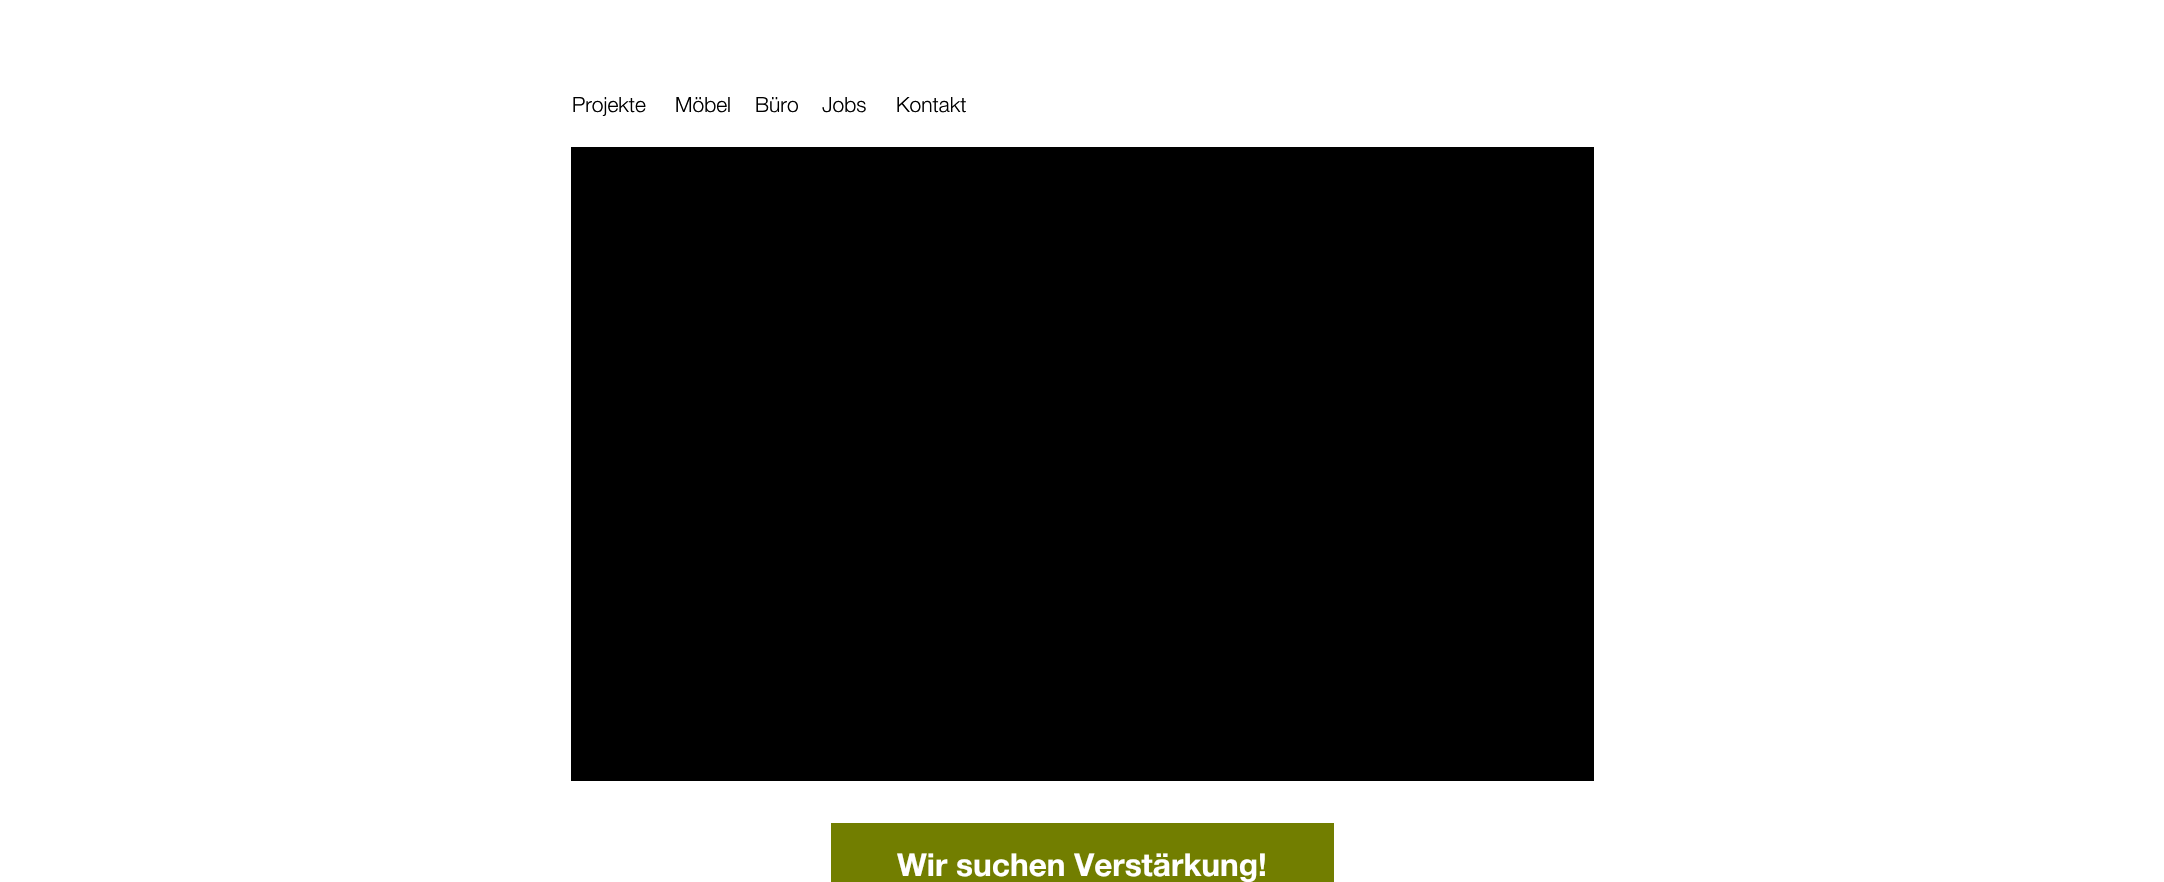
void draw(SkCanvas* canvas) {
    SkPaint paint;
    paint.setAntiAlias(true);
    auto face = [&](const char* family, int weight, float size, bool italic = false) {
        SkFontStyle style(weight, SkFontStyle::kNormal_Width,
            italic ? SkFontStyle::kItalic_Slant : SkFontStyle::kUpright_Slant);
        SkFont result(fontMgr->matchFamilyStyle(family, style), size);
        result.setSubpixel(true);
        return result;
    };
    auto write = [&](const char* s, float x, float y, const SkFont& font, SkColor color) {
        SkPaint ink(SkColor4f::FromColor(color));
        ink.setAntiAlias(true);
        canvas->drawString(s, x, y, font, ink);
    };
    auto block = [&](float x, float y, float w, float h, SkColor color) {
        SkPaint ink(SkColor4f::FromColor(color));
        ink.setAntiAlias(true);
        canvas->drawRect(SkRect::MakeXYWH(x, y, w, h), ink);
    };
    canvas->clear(SK_ColorWHITE);
    auto kFont1 = face("Helvetica Neue", 300, 21);
    write("Projekte", 572, 112, kFont1, SK_ColorBLACK);
    write("Möbel", 675, 112, kFont1, SK_ColorBLACK);
    write("Büro", 755, 112, kFont1, SK_ColorBLACK);
    write("Jobs", 822, 112, kFont1, SK_ColorBLACK);
    write("Kontakt", 896, 112, kFont1, SK_ColorBLACK);
    block(571, 147, 1023, 634, SK_ColorBLACK);
    block(831, 823, 503, 59, SkColorSetRGB(114, 126, 0));
    auto kFont2 = face("Helvetica Neue", 700, 31.6f);
    write("Wir suchen Verstärkung!", 897, 876, kFont2, SK_ColorWHITE);
}
